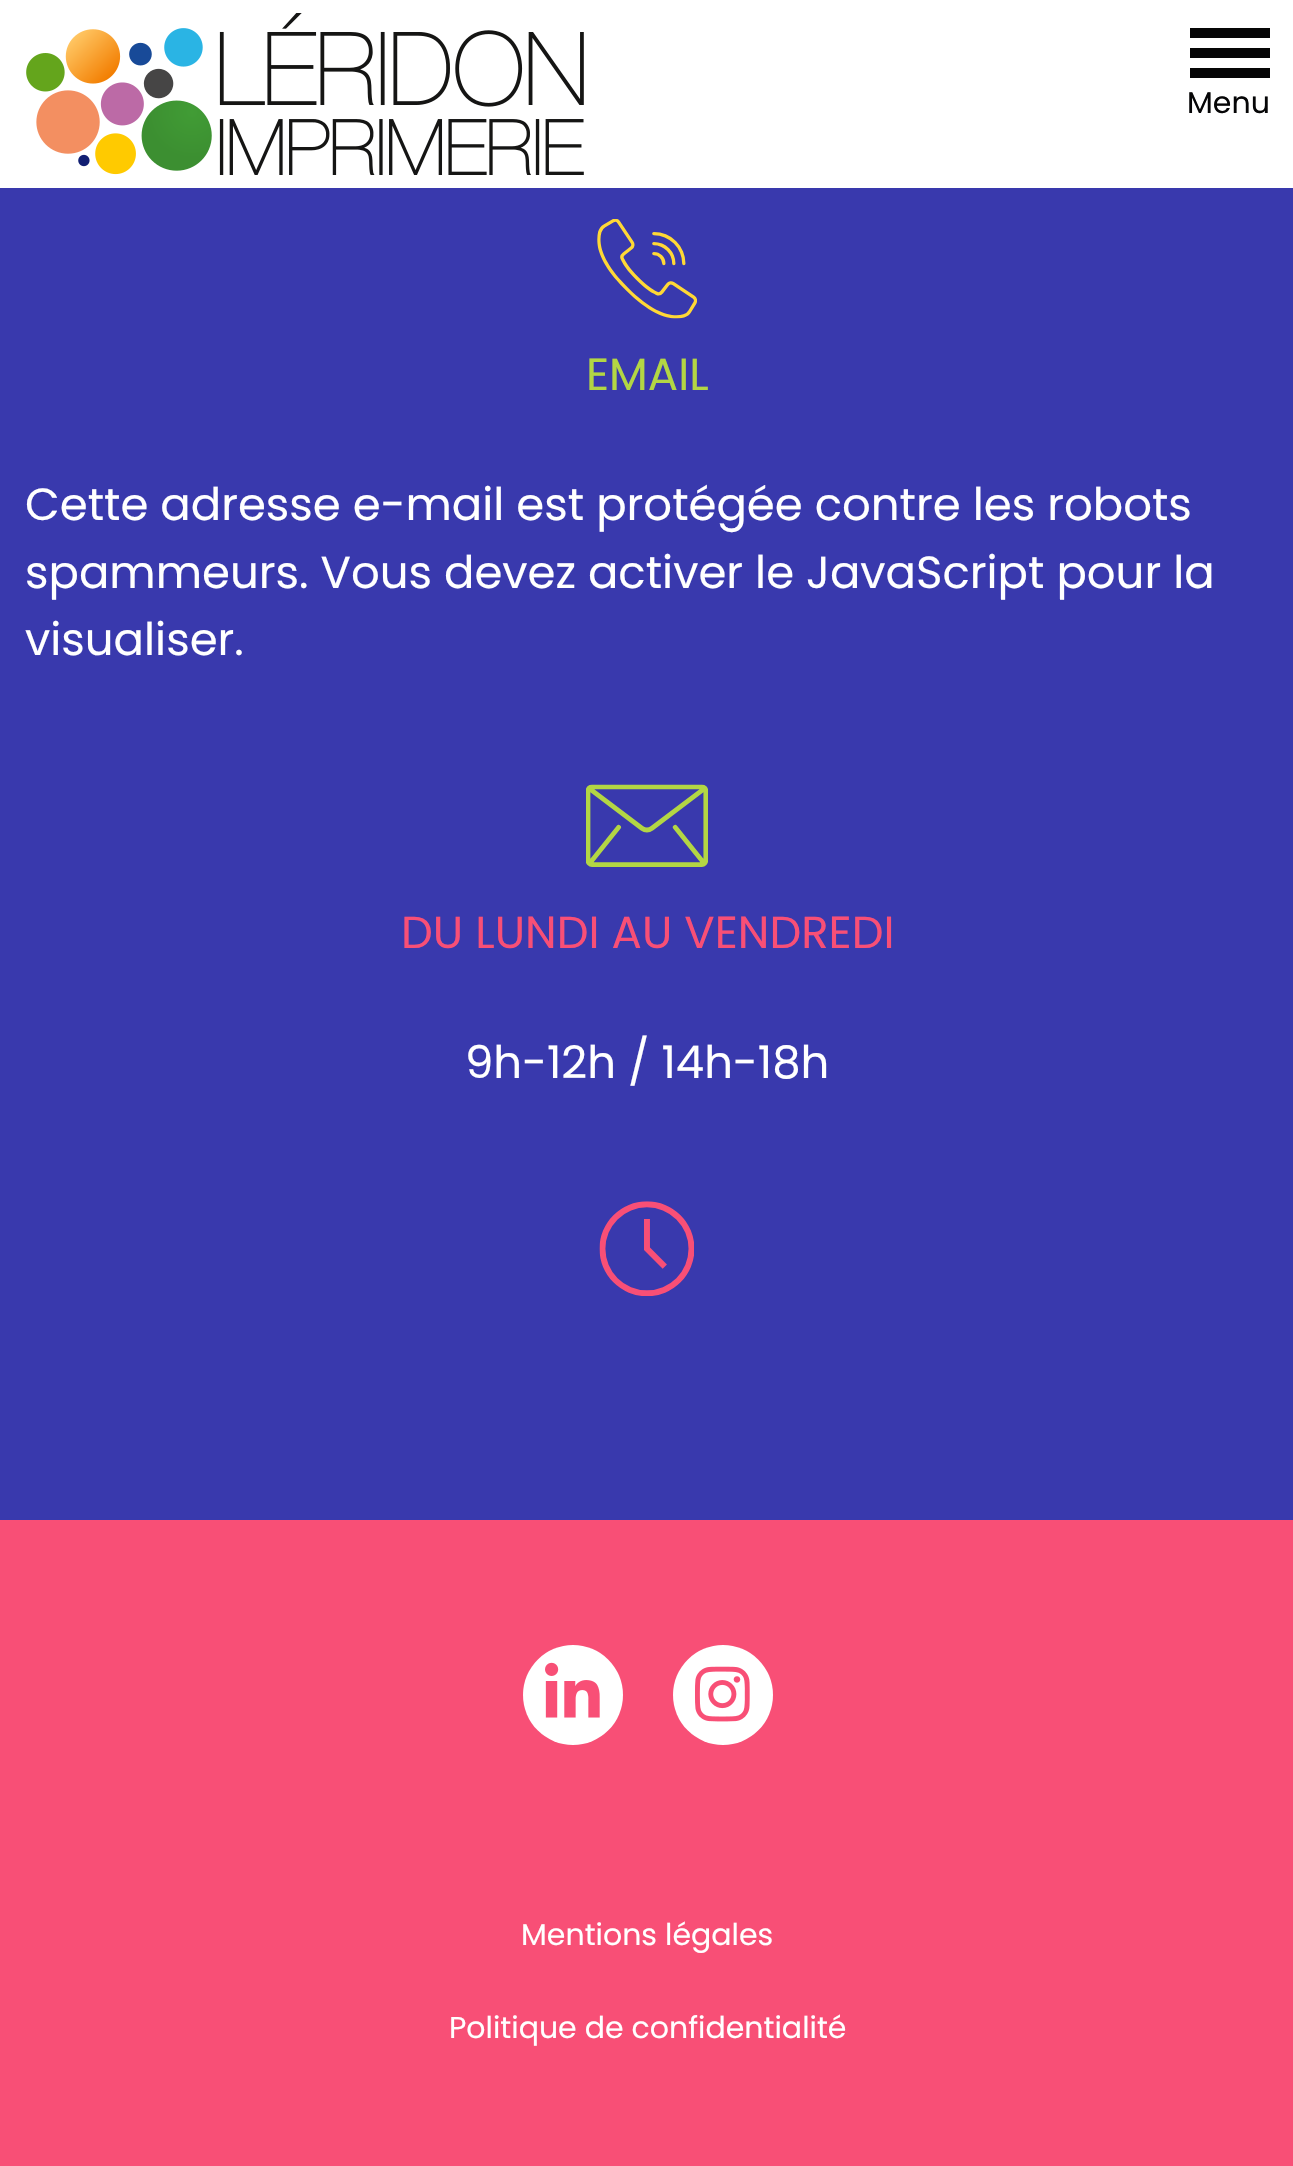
void draw(SkCanvas* canvas) {
    SkPaint paint;
    paint.setAntiAlias(true);
    auto face = [&](const char* family, int weight, float size, bool italic = false) {
        SkFontStyle style(weight, SkFontStyle::kNormal_Width,
            italic ? SkFontStyle::kItalic_Slant : SkFontStyle::kUpright_Slant);
        SkFont result(fontMgr->matchFamilyStyle(family, style), size);
        result.setSubpixel(true);
        return result;
    };
    auto write = [&](const char* s, float x, float y, const SkFont& font, SkColor color) {
        SkPaint ink(SkColor4f::FromColor(color));
        ink.setAntiAlias(true);
        canvas->drawString(s, x, y, font, ink);
    };
    auto block = [&](float x, float y, float w, float h, SkColor color) {
        SkPaint ink(SkColor4f::FromColor(color));
        ink.setAntiAlias(true);
        canvas->drawRect(SkRect::MakeXYWH(x, y, w, h), ink);
    };
    auto paste = [&](const char* path, float x, float y, float w, float h) {
        auto image = SkImages::DeferredFromEncodedData(SkData::MakeFromFileName(path));
        canvas->drawImageRect(image, SkRect::MakeXYWH(x, y, w, h), SkSamplingOptions());
    };
    canvas->clear(SkColorSetRGB(248, 79, 118));
    block(0, 0, 1293, 188, SK_ColorWHITE);
    paste("pic1.png", 26, 13, 558, 162);
    block(1190, 48, 80, 10, SkColorSetRGB(6, 6, 7));
    block(1190, 28, 80, 10, SkColorSetRGB(6, 6, 7));
    block(1190, 68, 80, 10, SkColorSetRGB(6, 6, 7));
    auto kFont1 = face("Poppins", 400, 30);
    write("Menu", 1187, 113, kFont1, SkColorSetRGB(6, 6, 7));
    block(0, 188, 1293, 1332, SkColorSetRGB(57, 57, 173));
    paste("pic2.png", 597, 219, 100, 100);
    auto kFont2 = face("Poppins", 400, 45);
    write("EMAIL", 586, 390, kFont2, SkColorSetRGB(179, 214, 68));
    write("Cette adresse e-mail est protégée contre les robots", 25, 520, kFont2, SK_ColorWHITE);
    write("spammeurs. Vous devez activer le JavaScript pour la", 25, 588, kFont2, SK_ColorWHITE);
    write("visualiser.", 25, 655, kFont2, SK_ColorWHITE);
    paste("pic3.png", 586, 784, 122, 83);
    write("DU LUNDI AU VENDREDI", 401, 948, kFont2, SkColorSetRGB(248, 79, 118));
    write("9h-12h / 14h-18h", 465, 1078, kFont2, SK_ColorWHITE);
    paste("pic4.png", 599, 1201, 95, 95);
    paint.setColor(SK_ColorWHITE);
    canvas->drawCircle(573, 1695, 50, paint);
    paste("pic5.png", 545, 1662, 55, 56);
    canvas->drawCircle(723, 1695, 50, paint);
    paste("pic6.png", 695, 1666, 55, 56);
    write("Mentions légales", 521, 1945, kFont1, SK_ColorWHITE);
    write("Politique de confidentialité", 449, 2038, kFont1, SK_ColorWHITE);
}
